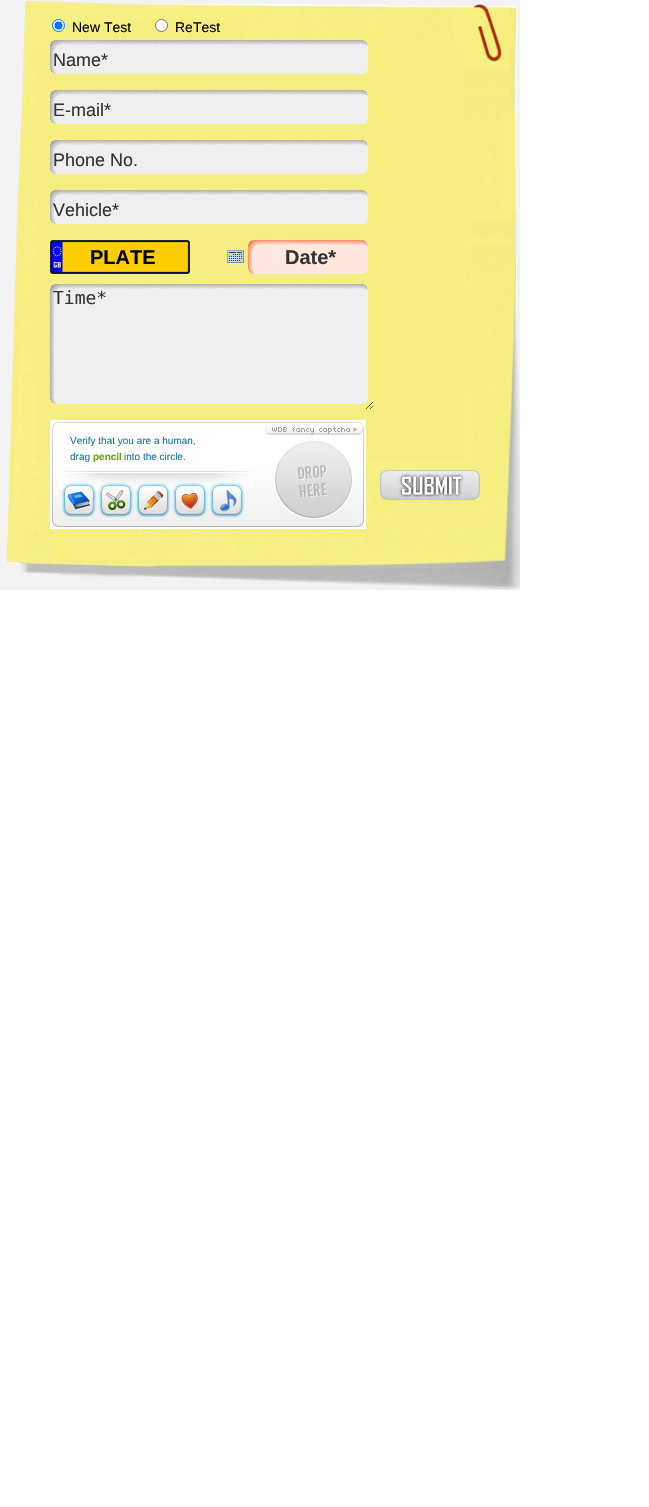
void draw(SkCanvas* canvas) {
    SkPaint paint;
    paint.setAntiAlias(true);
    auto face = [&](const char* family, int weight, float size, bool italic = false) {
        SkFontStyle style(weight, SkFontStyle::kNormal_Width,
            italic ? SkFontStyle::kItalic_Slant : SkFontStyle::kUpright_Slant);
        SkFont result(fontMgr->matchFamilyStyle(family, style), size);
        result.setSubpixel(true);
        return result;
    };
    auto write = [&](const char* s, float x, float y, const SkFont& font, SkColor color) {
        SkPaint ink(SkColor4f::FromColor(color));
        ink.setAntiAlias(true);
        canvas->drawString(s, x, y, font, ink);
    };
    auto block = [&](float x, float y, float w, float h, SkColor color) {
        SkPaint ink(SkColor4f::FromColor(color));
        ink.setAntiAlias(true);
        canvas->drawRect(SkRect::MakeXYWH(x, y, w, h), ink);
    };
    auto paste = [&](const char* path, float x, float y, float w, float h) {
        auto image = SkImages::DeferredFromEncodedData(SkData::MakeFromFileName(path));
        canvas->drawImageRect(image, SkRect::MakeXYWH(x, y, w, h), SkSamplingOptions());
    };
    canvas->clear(SK_ColorWHITE);
    paste("pic1.png", 0, 0, 520, 590);
    paint.setColor(SK_ColorWHITE);
    canvas->drawCircle(58.5f, 25.5f, 6, paint);
    paint.setStyle(SkPaint::kStroke_Style);
    paint.setStrokeWidth(1);
    paint.setColor(SkColorSetRGB(0, 117, 255));
    canvas->drawCircle(58.5f, 25.5f, 6, paint);
    paint.setStyle(SkPaint::kFill_Style);
    canvas->drawCircle(58.5f, 25.5f, 4, paint);
    auto kFont1 = face("Liberation Sans", 400, 14);
    write("New Test", 72, 32, kFont1, SK_ColorBLACK);
    paint.setColor(SK_ColorWHITE);
    canvas->drawCircle(161.5f, 25.5f, 6, paint);
    paint.setStyle(SkPaint::kStroke_Style);
    paint.setColor(SkColorSetRGB(118, 118, 118));
    canvas->drawCircle(161.5f, 25.5f, 6, paint);
    write("ReTest", 175, 32, kFont1, SK_ColorBLACK);
    paste("pic2.png", 50, 40, 318, 34);
    auto kFont2 = face("Liberation Sans", 400, 18);
    write("Name*", 53, 66, kFont2, SkColorSetRGB(51, 51, 51));
    paste("pic2.png", 50, 90, 318, 34);
    write("E-mail*", 53, 116, kFont2, SkColorSetRGB(51, 51, 51));
    paste("pic2.png", 50, 140, 318, 34);
    write("Phone No.", 53, 166, kFont2, SkColorSetRGB(51, 51, 51));
    paste("pic2.png", 50, 190, 318, 34);
    write("Vehicle*", 53, 216, kFont2, SkColorSetRGB(51, 51, 51));
    paste("pic3.png", 50, 240, 140, 34);
    auto kFont3 = face("Liberation Sans", 700, 20);
    write("PLATE", 90, 264, kFont3, SK_ColorBLACK);
    paste("pic4.png", 248, 240, 120, 34);
    write("Date*", 285, 264, kFont3, SkColorSetRGB(51, 51, 51));
    paste("pic5.png", 50, 284, 323, 125);
    auto kFont4 = face("DejaVu Sans Mono", 400, 18);
    write("Time*", 53, 304, kFont4, SkColorSetRGB(51, 51, 51));
    block(50, 420, 316, 109, SK_ColorWHITE);
    paste("pic6.png", 52, 422, 7, 105);
    paste("pic7.png", 59, 422, 298, 105);
    auto kFont5 = face("Liberation Sans", 400, 10);
    write("Verify that you are a human,", 70, 444, kFont5, SkColorSetRGB(24, 119, 157));
    write("drag", 70, 460, kFont5, SkColorSetRGB(24, 119, 157));
    auto kFont6 = face("Liberation Sans", 700, 10);
    write("pencil", 93, 460, kFont6, SkColorSetRGB(102, 167, 11));
    write("into the circle.", 124, 460, kFont5, SkColorSetRGB(24, 119, 157));
    paste("pic8.png", 59, 471, 192, 18);
    paste("pic9.png", 61, 482, 36, 36);
    paste("pic10.png", 98, 482, 36, 36);
    paste("pic11.png", 135, 482, 36, 36);
    paste("pic12.png", 172, 482, 36, 36);
    paste("pic13.png", 209, 482, 36, 36);
    paste("pic16.png", 357, 422, 7, 105);
    paste("pic14.png", 265, 423, 98, 12);
    paste("pic15.png", 275, 441, 77, 78);
    paste("pic17.png", 227, 250, 17, 13);
    paste("pic18.png", 380, 470, 100, 30);
}
